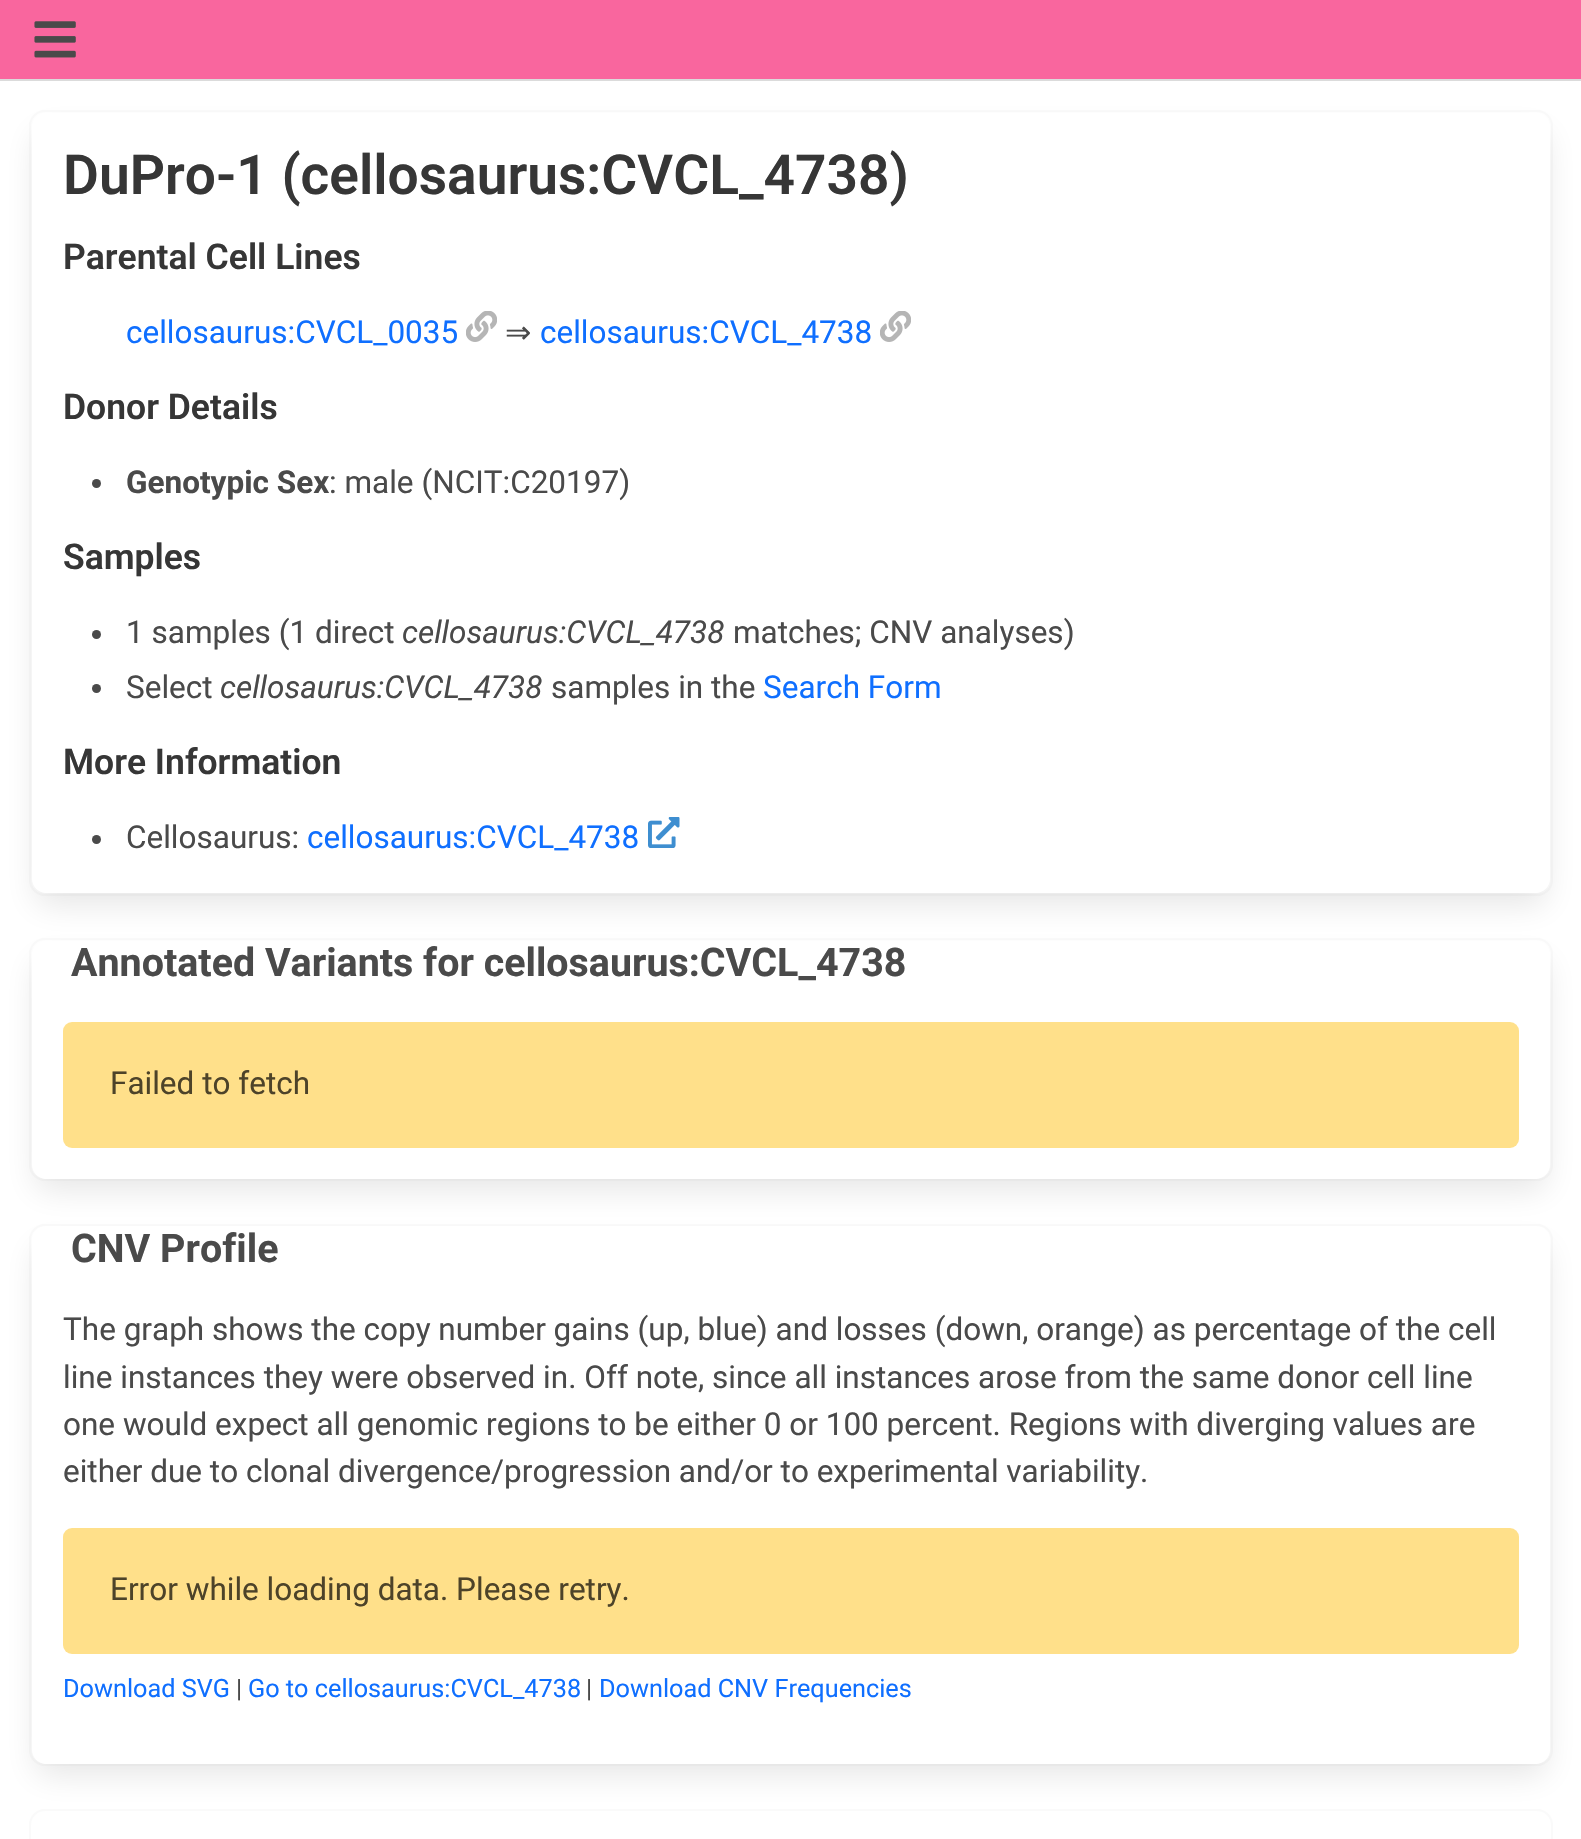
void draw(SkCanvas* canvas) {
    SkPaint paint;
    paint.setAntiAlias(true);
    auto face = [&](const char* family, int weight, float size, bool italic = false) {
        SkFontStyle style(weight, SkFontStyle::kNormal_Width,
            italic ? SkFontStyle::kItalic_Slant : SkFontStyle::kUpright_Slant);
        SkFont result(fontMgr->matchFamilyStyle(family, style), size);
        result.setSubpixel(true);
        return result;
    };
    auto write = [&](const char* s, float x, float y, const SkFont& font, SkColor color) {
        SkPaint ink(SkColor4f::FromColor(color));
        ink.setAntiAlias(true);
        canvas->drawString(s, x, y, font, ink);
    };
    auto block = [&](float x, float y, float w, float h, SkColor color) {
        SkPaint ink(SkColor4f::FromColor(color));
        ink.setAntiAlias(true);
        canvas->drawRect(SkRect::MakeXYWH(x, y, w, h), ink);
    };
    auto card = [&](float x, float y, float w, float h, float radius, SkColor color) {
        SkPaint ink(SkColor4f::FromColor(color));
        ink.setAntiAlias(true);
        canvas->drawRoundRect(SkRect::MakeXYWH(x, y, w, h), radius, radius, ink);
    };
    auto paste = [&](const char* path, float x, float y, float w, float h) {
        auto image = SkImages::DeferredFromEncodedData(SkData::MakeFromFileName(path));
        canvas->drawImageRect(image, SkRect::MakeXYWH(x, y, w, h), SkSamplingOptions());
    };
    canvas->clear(SK_ColorWHITE);
    block(0, 0, 1581, 79, SkColorSetRGB(249, 102, 158));
    block(0, 79, 1581, 2, SkColorSetRGB(219, 219, 219));
    paste("pic1.png", 34, 21, 42, 37);
    paint.setStyle(SkPaint::kStroke_Style);
    paint.setStrokeWidth(2);
    paint.setColor(SkColorSetRGB(250, 250, 250));
    canvas->drawRoundRect(SkRect::MakeXYWH(30, 111, 1522, 784), 15, 15, paint);
    canvas->save();
    canvas->clipPath(SkPathBuilder(SkPathFillType::kEvenOdd).moveTo(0, 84).lineTo(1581, 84).lineTo(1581, 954).lineTo(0, 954).close().moveTo(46, 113).lineTo(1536, 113).cubicTo(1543.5f, 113, 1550, 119.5f, 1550, 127).lineTo(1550, 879).cubicTo(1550, 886.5f, 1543.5f, 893, 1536, 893).lineTo(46, 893).cubicTo(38.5f, 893, 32, 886.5f, 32, 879).lineTo(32, 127).cubicTo(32, 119.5f, 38.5f, 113, 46, 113).close().detach(), true);
    paint.setStyle(SkPaint::kFill_Style);
    paint.setColor(SkColorSetARGB(26, 10, 10, 10));
    paint.setMaskFilter(SkMaskFilter::MakeBlur(kNormal_SkBlurStyle, 16));
    canvas->drawRoundRect(SkRect::MakeXYWH(36, 133, 1510, 772), 9, 9, paint);
    paint.setMaskFilter(nullptr);
    canvas->restore();
    auto kFont1 = face("Roboto", 600, 55.1f);
    write("DuPro-1 (cellosaurus:CVCL_4738)", 63, 194, kFont1, SkColorSetRGB(54, 54, 54));
    auto kFont2 = face("Roboto", 600, 35.5f);
    write("Parental Cell Lines", 63, 269, kFont2, SkColorSetRGB(54, 54, 54));
    auto kFont3 = face("Roboto", 400, 31.5f);
    write("cellosaurus:CVCL_0035", 126, 343, kFont3, SkColorSetRGB(15, 111, 255));
    paste("pic2.png", 466, 311, 31, 31);
    auto kFont4 = face("DejaVu Sans", 400, 31.5f);
    write("⇒", 505, 343, kFont4, SkColorSetRGB(74, 74, 74));
    write("cellosaurus:CVCL_4738", 540, 343, kFont3, SkColorSetRGB(15, 111, 255));
    paste("pic2.png", 880, 311, 31, 31);
    write("Donor Details", 63, 419, kFont2, SkColorSetRGB(54, 54, 54));
    paint.setColor(SkColorSetRGB(74, 74, 74));
    canvas->drawCircle(96.5f, 483.5f, 4.5f, paint);
    auto kFont5 = face("Roboto", 700, 31.5f);
    write("Genotypic Sex", 126, 493, kFont5, SkColorSetRGB(74, 74, 74));
    write(": male (NCIT:C20197)", 329, 493, kFont3, SkColorSetRGB(74, 74, 74));
    write("Samples", 63, 569, kFont2, SkColorSetRGB(54, 54, 54));
    canvas->drawCircle(96.5f, 634.5f, 4.5f, paint);
    write("1 samples (1 direct", 126, 643, kFont3, SkColorSetRGB(74, 74, 74));
    auto kFont6 = face("Roboto", 400, 31.5f, true);
    write("cellosaurus:CVCL_4738", 402, 643, kFont6, SkColorSetRGB(74, 74, 74));
    write("matches; CNV analyses)", 733, 643, kFont3, SkColorSetRGB(74, 74, 74));
    canvas->drawCircle(96.5f, 688.5f, 4.5f, paint);
    write("Select", 126, 698, kFont3, SkColorSetRGB(74, 74, 74));
    write("cellosaurus:CVCL_4738", 220, 698, kFont6, SkColorSetRGB(74, 74, 74));
    write("samples in the", 551, 698, kFont3, SkColorSetRGB(74, 74, 74));
    write("Search Form", 763, 698, kFont3, SkColorSetRGB(15, 111, 255));
    write("More Information", 63, 774, kFont2, SkColorSetRGB(54, 54, 54));
    canvas->drawCircle(96.5f, 839.5f, 4.5f, paint);
    write("Cellosaurus:", 126, 848, kFont3, SkColorSetRGB(74, 74, 74));
    write("cellosaurus:CVCL_4738", 307, 848, kFont3, SkColorSetRGB(15, 111, 255));
    paste("pic3.png", 648, 817, 32, 31);
    paint.setStyle(SkPaint::kStroke_Style);
    paint.setColor(SkColorSetRGB(250, 250, 250));
    canvas->drawRoundRect(SkRect::MakeXYWH(30, 939, 1522, 241), 15, 15, paint);
    canvas->save();
    canvas->clipPath(SkPathBuilder(SkPathFillType::kEvenOdd).moveTo(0, 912).lineTo(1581, 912).lineTo(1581, 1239).lineTo(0, 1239).close().moveTo(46, 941).lineTo(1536, 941).cubicTo(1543.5f, 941, 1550, 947.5f, 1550, 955).lineTo(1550, 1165).cubicTo(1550, 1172.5f, 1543.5f, 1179, 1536, 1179).lineTo(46, 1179).cubicTo(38.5f, 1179, 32, 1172.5f, 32, 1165).lineTo(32, 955).cubicTo(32, 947.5f, 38.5f, 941, 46, 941).close().detach(), true);
    paint.setStyle(SkPaint::kFill_Style);
    paint.setColor(SkColorSetARGB(26, 10, 10, 10));
    paint.setMaskFilter(SkMaskFilter::MakeBlur(kNormal_SkBlurStyle, 16));
    canvas->drawRoundRect(SkRect::MakeXYWH(36, 961, 1510, 229), 9, 9, paint);
    paint.setMaskFilter(nullptr);
    canvas->restore();
    auto kFont7 = face("Roboto", 700, 39.4f);
    write("Annotated Variants for cellosaurus:CVCL_4738", 71, 976, kFont7, SkColorSetRGB(74, 74, 74));
    card(63, 1022, 1456, 126, 9, SkColorSetRGB(255, 224, 138));
    write("Failed to fetch", 110, 1094, kFont3, SkColorSetRGB(77, 67, 41));
    paint.setStyle(SkPaint::kStroke_Style);
    paint.setColor(SkColorSetRGB(250, 250, 250));
    canvas->drawRoundRect(SkRect::MakeXYWH(30, 1225, 1522, 540), 15, 15, paint);
    canvas->save();
    canvas->clipPath(SkPathBuilder(SkPathFillType::kEvenOdd).moveTo(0, 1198).lineTo(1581, 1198).lineTo(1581, 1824).lineTo(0, 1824).close().moveTo(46, 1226).lineTo(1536, 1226).cubicTo(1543.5f, 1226, 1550, 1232.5f, 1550, 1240).lineTo(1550, 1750).cubicTo(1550, 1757.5f, 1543.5f, 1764, 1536, 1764).lineTo(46, 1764).cubicTo(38.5f, 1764, 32, 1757.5f, 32, 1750).lineTo(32, 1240).cubicTo(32, 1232.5f, 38.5f, 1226, 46, 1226).close().detach(), true);
    paint.setStyle(SkPaint::kFill_Style);
    paint.setColor(SkColorSetARGB(26, 10, 10, 10));
    paint.setMaskFilter(SkMaskFilter::MakeBlur(kNormal_SkBlurStyle, 16));
    canvas->drawRoundRect(SkRect::MakeXYWH(36, 1247, 1510, 528), 9, 9, paint);
    paint.setMaskFilter(nullptr);
    canvas->restore();
    write("CNV Profile", 71, 1262, kFont7, SkColorSetRGB(74, 74, 74));
    write("The graph shows the copy number gains (up, blue) and losses (down, orange) as percentage of the cell", 63, 1340, kFont3, SkColorSetRGB(74, 74, 74));
    write("line instances they were observed in. Off note, since all instances arose from the same donor cell line", 63, 1388, kFont3, SkColorSetRGB(74, 74, 74));
    write("one would expect all genomic regions to be either 0 or 100 percent. Regions with diverging values are", 63, 1435, kFont3, SkColorSetRGB(74, 74, 74));
    write("either due to clonal divergence/progression and/or to experimental variability.", 63, 1482, kFont3, SkColorSetRGB(74, 74, 74));
    card(63, 1528, 1456, 126, 9, SkColorSetRGB(255, 224, 138));
    write("Error while loading data. Please retry.", 110, 1600, kFont3, SkColorSetRGB(77, 67, 41));
    auto kFont8 = face("Roboto", 400, 25.25f);
    write("Download SVG", 63, 1697, kFont8, SkColorSetRGB(15, 111, 255));
    write("|", 236, 1697, kFont8, SkColorSetRGB(74, 74, 74));
    write("Go to cellosaurus:CVCL_4738", 248, 1697, kFont8, SkColorSetRGB(15, 111, 255));
    write("|", 586, 1697, kFont8, SkColorSetRGB(74, 74, 74));
    write("Download CNV Frequencies", 599, 1697, kFont8, SkColorSetRGB(15, 111, 255));
    paint.setStyle(SkPaint::kStroke_Style);
    paint.setColor(SkColorSetRGB(250, 250, 250));
    canvas->drawRoundRect(SkRect::MakeXYWH(30, 1810, 1522, 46), 15, 15, paint);
}
